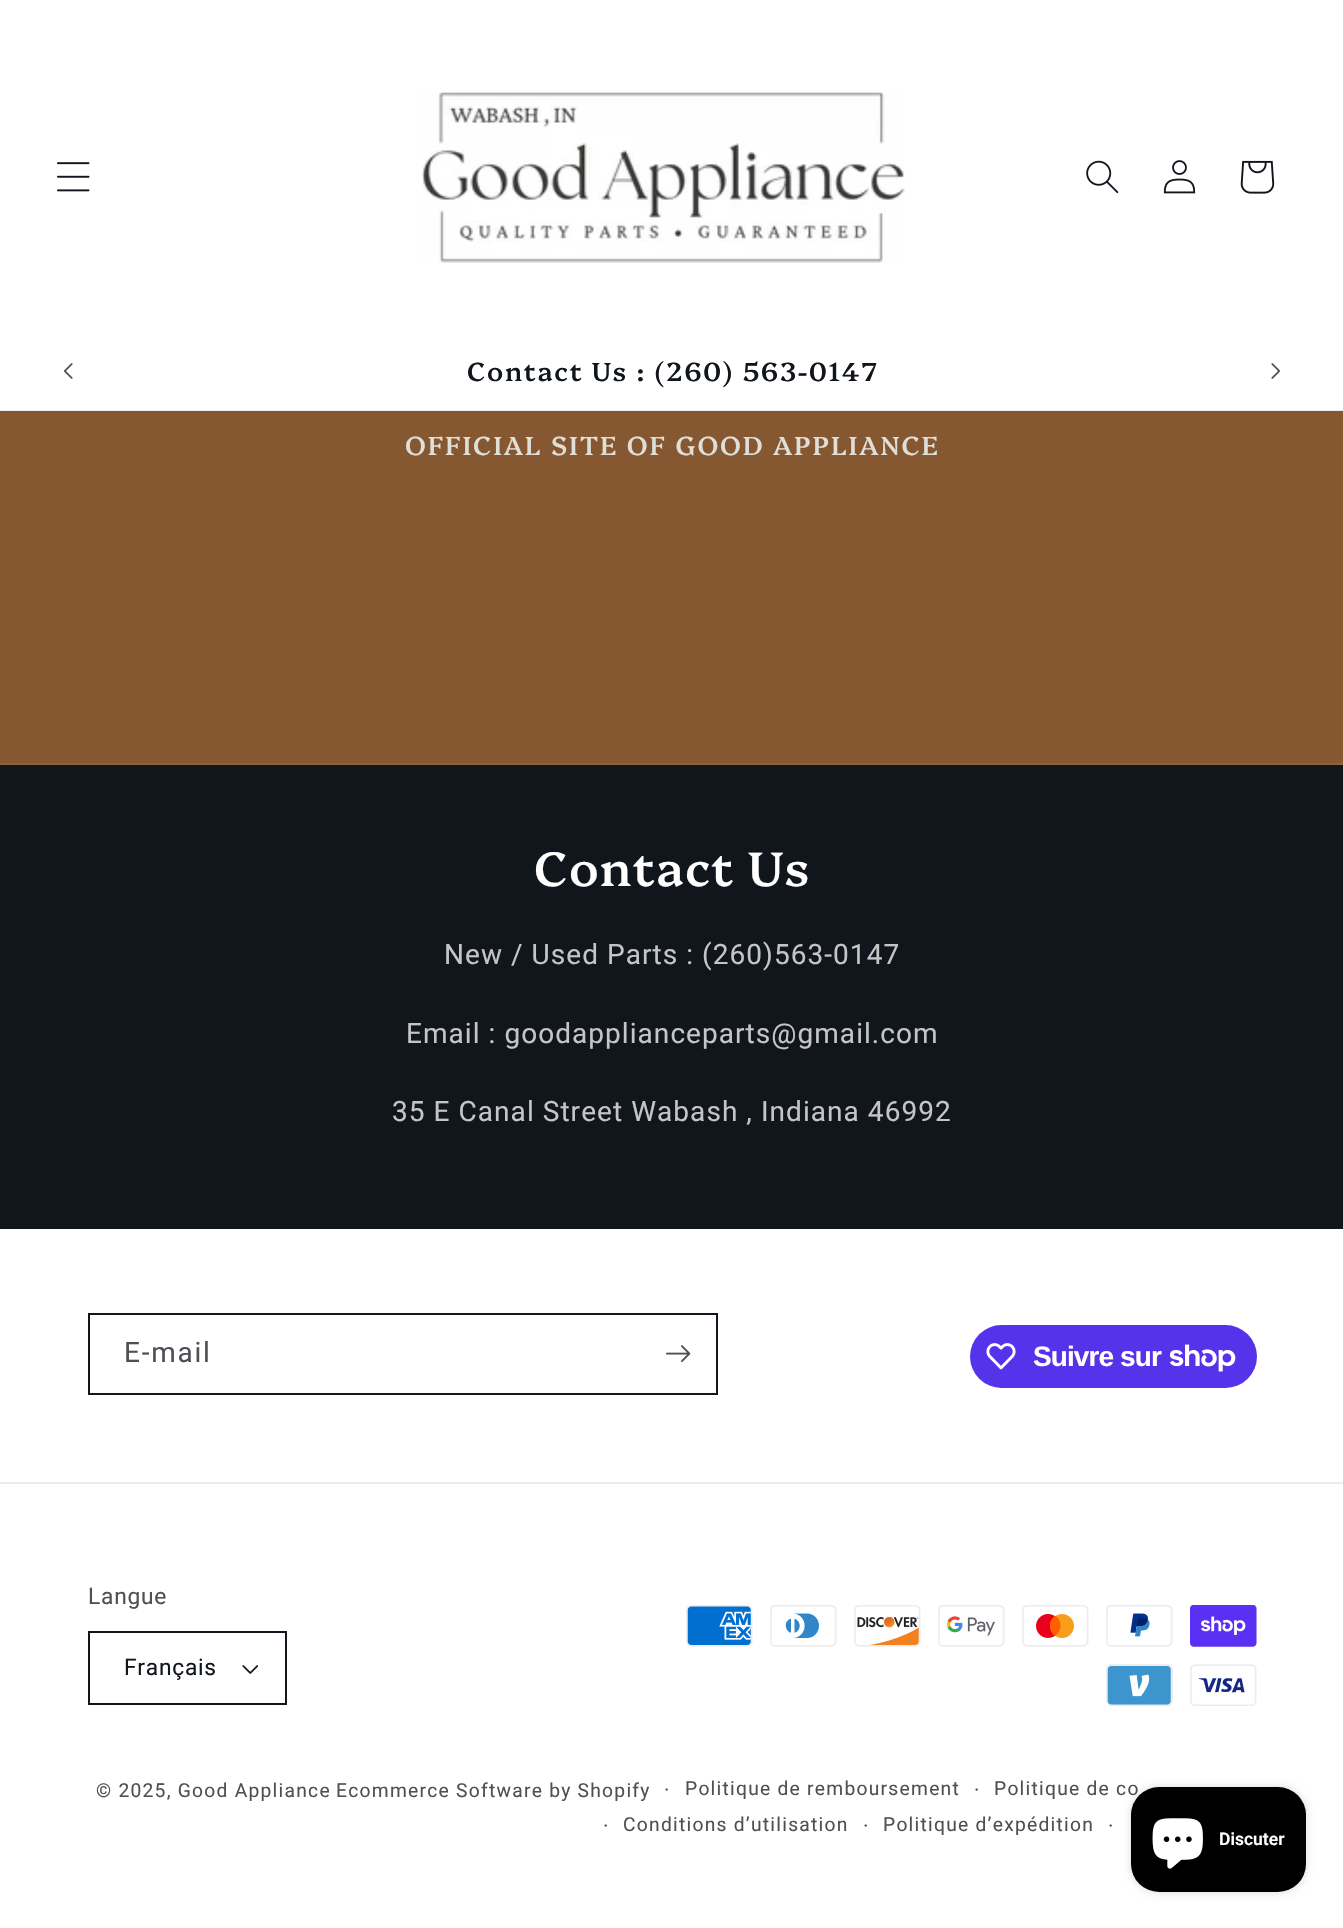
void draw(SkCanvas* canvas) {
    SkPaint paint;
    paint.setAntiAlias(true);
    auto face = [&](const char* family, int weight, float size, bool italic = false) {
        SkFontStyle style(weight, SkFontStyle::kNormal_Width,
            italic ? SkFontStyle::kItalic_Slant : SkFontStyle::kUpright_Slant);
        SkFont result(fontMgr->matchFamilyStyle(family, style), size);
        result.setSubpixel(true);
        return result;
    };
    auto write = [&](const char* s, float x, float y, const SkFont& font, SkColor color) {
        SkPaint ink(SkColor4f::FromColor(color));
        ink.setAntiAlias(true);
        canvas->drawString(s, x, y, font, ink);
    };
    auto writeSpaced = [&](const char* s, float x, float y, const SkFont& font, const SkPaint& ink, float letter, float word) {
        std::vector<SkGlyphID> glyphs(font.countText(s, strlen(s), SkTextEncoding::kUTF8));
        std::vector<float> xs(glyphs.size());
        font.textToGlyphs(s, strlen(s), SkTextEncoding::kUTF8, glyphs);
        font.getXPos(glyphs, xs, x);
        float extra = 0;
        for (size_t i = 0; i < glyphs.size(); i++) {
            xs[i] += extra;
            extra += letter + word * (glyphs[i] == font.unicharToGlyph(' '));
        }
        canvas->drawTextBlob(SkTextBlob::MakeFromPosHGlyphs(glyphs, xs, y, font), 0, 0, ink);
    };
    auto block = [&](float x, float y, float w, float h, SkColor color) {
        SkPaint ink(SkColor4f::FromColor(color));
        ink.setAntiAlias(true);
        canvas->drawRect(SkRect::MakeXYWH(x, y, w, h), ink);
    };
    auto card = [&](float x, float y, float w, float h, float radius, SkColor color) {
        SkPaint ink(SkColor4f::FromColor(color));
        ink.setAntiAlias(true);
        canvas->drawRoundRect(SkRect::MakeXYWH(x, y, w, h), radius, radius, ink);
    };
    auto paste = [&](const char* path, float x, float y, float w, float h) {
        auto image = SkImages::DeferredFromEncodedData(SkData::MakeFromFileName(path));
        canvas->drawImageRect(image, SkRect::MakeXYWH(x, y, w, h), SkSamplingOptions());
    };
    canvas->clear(SK_ColorWHITE);
    paste("pic1.png", 57, 162, 33, 30);
    paste("pic2.png", 421, 92, 484, 171);
    paste("pic3.png", 1086, 160, 33, 34);
    paste("pic4.png", 1163, 160, 33, 34);
    paste("pic5.png", 1240, 160, 35, 34);
    block(0, 410, 1343, 1, SkColorSetRGB(236, 236, 237));
    paste("pic6.png", 64, 363, 9, 16);
    auto kFont1 = face("Platypi", 500, 26.2f);
    paint.setColor(SkColorSetRGB(17, 21, 28));
    writeSpaced("Contact Us : (260) 563-0147", 467, 381, kFont1, paint, 1.75f, 0);
    paste("pic7.png", 1271, 363, 9, 16);
    block(0, 411, 1343, 352, SkColorSetRGB(133, 88, 50));
    block(0, 763, 1343, 2, SkColorSetRGB(140, 99, 63));
    paint.setColor(SkColorSetRGB(223, 223, 216));
    writeSpaced("OFFICIAL SITE OF GOOD APPLIANCE", 405, 455, kFont1, paint, 1.75f, 0);
    block(0, 765, 1343, 464, SkColorSetRGB(17, 21, 28));
    auto kFont2 = face("Platypi", 500, 48.25f);
    paint.setColor(SK_ColorWHITE);
    writeSpaced("Contact Us", 534, 886, kFont2, paint, 1.25f, 0);
    auto kFont3 = face("Roboto", 400, 28);
    paint.setColor(SkColorSetRGB(196, 197, 198));
    writeSpaced("New / Used Parts : (260)563-0147", 444, 964, kFont3, paint, 1.05f, 0);
    writeSpaced("Email : goodapplianceparts@gmail.com", 406, 1043, kFont3, paint, 1.05f, 0);
    writeSpaced("35 E Canal Street Wabash , Indiana 46992", 392, 1121, kFont3, paint, 1.05f, 0);
    paint.setStyle(SkPaint::kStroke_Style);
    paint.setStrokeWidth(2);
    paint.setColor(SkColorSetRGB(17, 21, 28));
    canvas->drawRect(SkRect::MakeXYWH(89, 1314, 628, 80), paint);
    paint.setStyle(SkPaint::kFill_Style);
    paint.setColor(SkColorSetRGB(77, 80, 85));
    writeSpaced("E-mail", 124, 1362, kFont3, paint, 1.75f, 0);
    paste("pic8.png", 666, 1345, 25, 17);
    card(970, 1325, 287, 63, 31.5f, SkColorSetRGB(84, 51, 235));
    paste("pic9.png", 986, 1343, 30, 27);
    auto kFont4 = face("Liberation Sans", 700, 28);
    paint.setColor(SK_ColorWHITE);
    writeSpaced("Suivre sur", 1033, 1366, kFont4, paint, -0.9f, 0);
    paste("pic10.png", 1169, 1344, 67, 28);
    block(0, 1482, 1343, 2, SkColorSetRGB(236, 236, 237));
    auto kFont5 = face("Roboto", 400, 22.75f);
    paint.setColor(SkColorSetRGB(77, 80, 85));
    writeSpaced("Langue", 88, 1604, kFont5, paint, 0.75f, 0);
    paste("pic11.png", 242, 1665, 16, 9);
    paint.setStyle(SkPaint::kStroke_Style);
    paint.setColor(SkColorSetRGB(17, 21, 28));
    canvas->drawRect(SkRect::MakeXYWH(89, 1632, 197, 72), paint);
    paint.setStyle(SkPaint::kFill_Style);
    writeSpaced("Français", 124, 1675, kFont5, paint, 0.75f, 0);
    paste("pic12.png", 686, 1605, 67, 42);
    paste("pic13.png", 770, 1605, 67, 42);
    paste("pic14.png", 854, 1605, 67, 42);
    paste("pic15.png", 938, 1605, 67, 42);
    paste("pic16.png", 1022, 1605, 67, 42);
    paste("pic17.png", 1106, 1605, 67, 42);
    paste("pic18.png", 1190, 1605, 67, 42);
    paste("pic19.png", 1106, 1664, 67, 42);
    paste("pic20.png", 1190, 1664, 67, 42);
    auto kFont6 = face("Roboto", 400, 19.25f);
    paint.setColor(SkColorSetRGB(77, 80, 85));
    writeSpaced("© 2025, Good Appliance", 96, 1797, kFont6, paint, 1.25f, 0);
    writeSpaced("Ecommerce Software by Shopify", 336, 1797, kFont6, paint, 1.25f, 0);
    auto kFont7 = face("Roboto", 400, 21);
    writeSpaced("·", 664, 1797, kFont7, paint, 1.25f, 0);
    writeSpaced("Politique de remboursement", 685, 1795, kFont6, paint, 1.25f, 0);
    writeSpaced("·", 974, 1797, kFont7, paint, 1.25f, 0);
    writeSpaced("Politique de co", 994, 1795, kFont6, paint, 1.25f, 0);
    writeSpaced("·", 603, 1833, kFont7, paint, 1.25f, 0);
    writeSpaced("Conditions d’utilisation", 623, 1831, kFont6, paint, 1.25f, 0);
    writeSpaced("·", 863, 1833, kFont7, paint, 1.25f, 0);
    writeSpaced("Politique d’expédition", 883, 1831, kFont6, paint, 1.25f, 0);
    writeSpaced("·", 1108, 1833, kFont7, paint, 1.25f, 0);
    paint.setColor(SkColorSetARGB(38, 0, 0, 0));
    paint.setMaskFilter(SkMaskFilter::MakeBlur(kNormal_SkBlurStyle, 4.5f));
    canvas->drawRoundRect(SkRect::MakeXYWH(1131, 1787, 175, 105), 28, 28, paint);
    paint.setMaskFilter(nullptr);
    card(1131, 1787, 175, 105, 28, SK_ColorBLACK);
    paste("pic21.png", 1152, 1818, 51, 51);
    auto kFont8 = face("Roboto", 600, 17.5f);
    write("Discuter", 1219, 1845, kFont8, SK_ColorWHITE);
}
